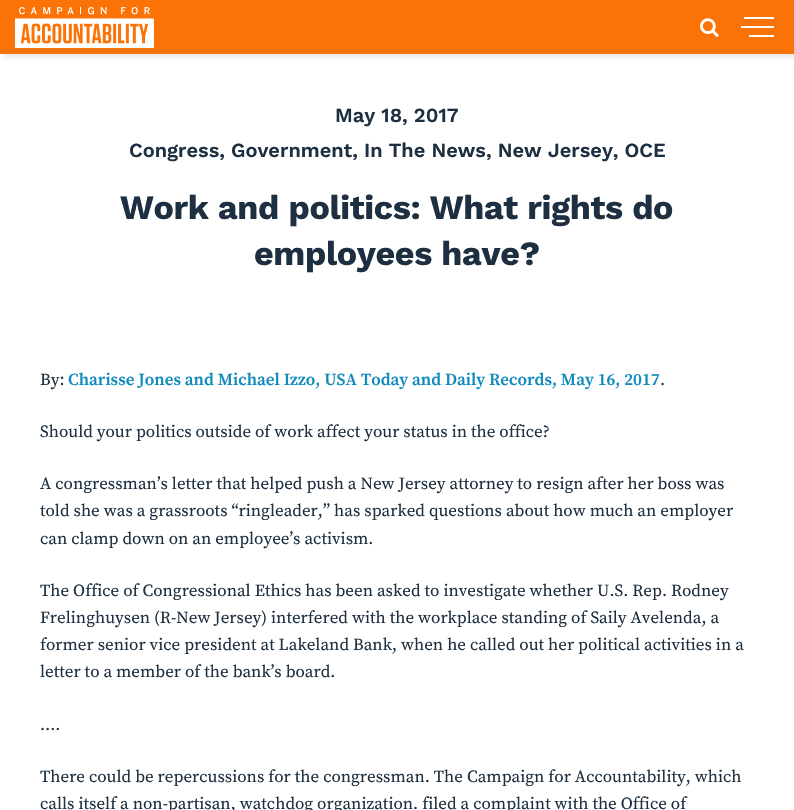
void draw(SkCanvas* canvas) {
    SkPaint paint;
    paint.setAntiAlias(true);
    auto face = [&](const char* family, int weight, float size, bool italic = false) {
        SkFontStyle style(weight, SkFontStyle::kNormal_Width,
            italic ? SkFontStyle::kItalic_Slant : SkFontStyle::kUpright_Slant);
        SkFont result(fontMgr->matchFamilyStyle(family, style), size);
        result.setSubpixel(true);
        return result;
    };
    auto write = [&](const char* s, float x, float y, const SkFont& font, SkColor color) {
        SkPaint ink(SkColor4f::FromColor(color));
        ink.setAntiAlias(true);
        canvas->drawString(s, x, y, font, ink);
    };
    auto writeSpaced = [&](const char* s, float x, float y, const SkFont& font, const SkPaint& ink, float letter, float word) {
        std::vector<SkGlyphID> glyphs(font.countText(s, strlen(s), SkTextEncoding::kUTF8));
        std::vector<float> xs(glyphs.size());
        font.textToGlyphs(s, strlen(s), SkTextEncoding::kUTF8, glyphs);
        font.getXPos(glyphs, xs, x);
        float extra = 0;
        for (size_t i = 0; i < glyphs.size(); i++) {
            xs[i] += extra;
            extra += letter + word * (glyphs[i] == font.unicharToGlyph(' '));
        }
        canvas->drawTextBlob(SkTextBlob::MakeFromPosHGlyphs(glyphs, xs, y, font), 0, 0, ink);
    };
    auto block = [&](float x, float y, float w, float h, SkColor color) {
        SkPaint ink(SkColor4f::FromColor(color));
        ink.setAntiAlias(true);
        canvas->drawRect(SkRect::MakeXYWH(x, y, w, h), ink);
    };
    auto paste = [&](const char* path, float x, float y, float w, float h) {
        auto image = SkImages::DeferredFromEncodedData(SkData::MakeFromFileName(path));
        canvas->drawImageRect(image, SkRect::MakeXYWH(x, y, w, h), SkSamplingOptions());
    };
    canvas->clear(SK_ColorWHITE);
    paint.setColor(SkColorSetARGB(20, 0, 0, 0));
    paint.setMaskFilter(SkMaskFilter::MakeBlur(kNormal_SkBlurStyle, 2));
    canvas->drawRect(SkRect::MakeXYWH(4, 4, 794, 54), paint);
    paint.setMaskFilter(nullptr);
    block(0, 0, 794, 54, SkColorSetRGB(251, 115, 7));
    paste("pic1.png", 15, 7, 139, 41);
    paste("pic2.png", 700, 18, 19, 19);
    block(741, 26, 33, 2, SK_ColorWHITE);
    block(744, 17, 30, 2, SK_ColorWHITE);
    block(749, 35, 25, 2, SK_ColorWHITE);
    auto kFont1 = face("Work Sans", 600, 20);
    write("May 18, 2017", 335, 122, kFont1, SkColorSetRGB(29, 47, 64));
    write("Congress, Government, In The News, New Jersey, OCE", 129, 157, kFont1, SkColorSetRGB(29, 47, 64));
    auto kFont2 = face("Work Sans", 700, 34);
    paint.setColor(SkColorSetRGB(29, 47, 64));
    writeSpaced("Work and politics: What rights do", 120, 219, kFont2, paint, -0.35f, 0);
    writeSpaced("employees have?", 254, 265, kFont2, paint, -0.35f, 0);
    auto kFont3 = face("Source Serif Pro", 400, 17);
    write("By:", 40, 385, kFont3, SkColorSetRGB(29, 47, 64));
    auto kFont4 = face("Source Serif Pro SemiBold", 600, 17);
    write("Charisse Jones and Michael Izzo, USA Today and Daily Records, May 16, 2017", 68, 385, kFont4, SkColorSetRGB(16, 138, 188));
    write(".", 660, 385, kFont3, SkColorSetRGB(29, 47, 64));
    write("Should your politics outside of work affect your status in the office?", 40, 437, kFont3, SkColorSetRGB(29, 47, 64));
    write("A congressman’s letter that helped push a New Jersey attorney to resign after her boss was", 40, 489, kFont3, SkColorSetRGB(29, 47, 64));
    write("told she was a grassroots “ringleader,’’ has sparked questions about how much an employer", 40, 516, kFont3, SkColorSetRGB(29, 47, 64));
    write("can clamp down on an employee’s activism.", 40, 544, kFont3, SkColorSetRGB(29, 47, 64));
    write("The Office of Congressional Ethics has been asked to investigate whether U.S. Rep. Rodney", 40, 596, kFont3, SkColorSetRGB(29, 47, 64));
    write("Frelinghuysen (R-New Jersey) interfered with the workplace standing of Saily Avelenda, a", 40, 623, kFont3, SkColorSetRGB(29, 47, 64));
    write("former senior vice president at Lakeland Bank, when he called out her political activities in a", 40, 650, kFont3, SkColorSetRGB(29, 47, 64));
    write("letter to a member of the bank’s board.", 40, 677, kFont3, SkColorSetRGB(29, 47, 64));
    write("….", 40, 730, kFont3, SkColorSetRGB(29, 47, 64));
    write("There could be repercussions for the congressman. The Campaign for Accountability, which", 40, 782, kFont3, SkColorSetRGB(29, 47, 64));
    write("calls itself a non-partisan, watchdog organization. filed a complaint with the Office of", 40, 809, kFont3, SkColorSetRGB(29, 47, 64));
}
